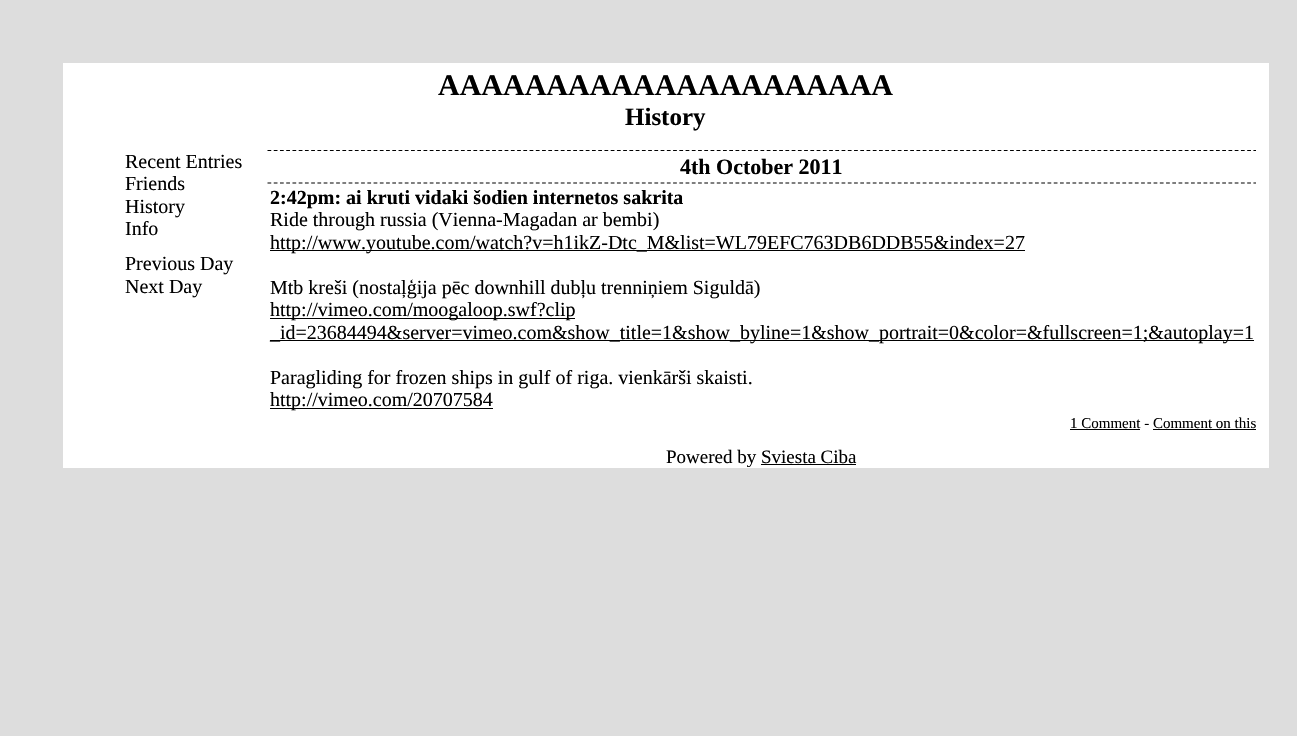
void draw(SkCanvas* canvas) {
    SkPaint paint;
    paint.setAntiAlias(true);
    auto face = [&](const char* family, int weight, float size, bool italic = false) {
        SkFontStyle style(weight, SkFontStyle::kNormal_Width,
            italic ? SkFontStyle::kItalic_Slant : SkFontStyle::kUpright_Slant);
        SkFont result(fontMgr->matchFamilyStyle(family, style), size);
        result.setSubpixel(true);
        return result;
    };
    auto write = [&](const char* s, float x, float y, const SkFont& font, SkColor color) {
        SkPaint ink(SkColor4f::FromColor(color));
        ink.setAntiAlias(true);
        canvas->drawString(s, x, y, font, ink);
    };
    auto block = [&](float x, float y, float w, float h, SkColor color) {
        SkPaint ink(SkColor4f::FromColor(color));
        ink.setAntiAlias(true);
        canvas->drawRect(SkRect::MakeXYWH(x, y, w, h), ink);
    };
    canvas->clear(SkColorSetRGB(221, 221, 221));
    block(63, 63, 1206, 75, SK_ColorWHITE);
    auto kFont1 = face("Liberation Serif", 700, 30);
    write("AAAAAAAAAAAAAAAAAAAAA", 438, 95, kFont1, SK_ColorBLACK);
    auto kFont2 = face("Liberation Serif", 700, 25);
    write("History", 625, 125, kFont2, SK_ColorBLACK);
    block(63, 138, 1206, 330, SK_ColorWHITE);
    auto kFont3 = face("Liberation Serif", 400, 20);
    write("Recent Entries", 125, 168, kFont3, SK_ColorBLACK);
    write("Friends", 125, 190, kFont3, SK_ColorBLACK);
    write("History", 125, 213, kFont3, SK_ColorBLACK);
    write("Info", 125, 235, kFont3, SK_ColorBLACK);
    write("Previous Day", 125, 270, kFont3, SK_ColorBLACK);
    write("Next Day", 125, 293, kFont3, SK_ColorBLACK);
    paint.setStyle(SkPaint::kStroke_Style);
    paint.setStrokeWidth(1.2f);
    paint.setColor(SK_ColorBLACK);
    paint.setPathEffect(SkDashPathEffect::Make({{3.75f, 2.49f}}, 0));
    canvas->drawPath(SkPathBuilder().moveTo(267.5f, 150.5f).lineTo(1256, 150.5f).detach(), paint);
    paint.setPathEffect(nullptr);
    paint.setPathEffect(SkDashPathEffect::Make({{3.75f, 2.49f}}, 0));
    canvas->drawPath(SkPathBuilder().moveTo(267.5f, 183).lineTo(1256, 183).detach(), paint);
    paint.setPathEffect(nullptr);
    auto kFont4 = face("Liberation Serif", 700, 22);
    write("4th October 2011", 680, 174, kFont4, SK_ColorBLACK);
    auto kFont5 = face("Liberation Serif", 700, 20);
    write("2:42pm: ai kruti vidaki šodien internetos sakrita", 270, 204, kFont5, SK_ColorBLACK);
    write("Ride through russia (Vienna-Magadan ar bembi)", 270, 226, kFont3, SK_ColorBLACK);
    block(270, 250, 755, 1, SK_ColorBLACK);
    write("http://www.youtube.com/watch?v=h1ikZ-Dtc_M&list=WL79EFC763DB6DDB55&index=27", 270, 249, kFont3, SK_ColorBLACK);
    write("Mtb kreši (nostaļģija pēc downhill dubļu trenniņiem Siguldā)", 270, 294, kFont3, SK_ColorBLACK);
    block(270, 318, 305, 1, SK_ColorBLACK);
    write("http://vimeo.com/moogaloop.swf?clip", 270, 316, kFont3, SK_ColorBLACK);
    block(270, 340, 984, 1, SK_ColorBLACK);
    write("_id=23684494&server=vimeo.com&show_title=1&show_byline=1&show_portrait=0&color=&fullscreen=1;&autoplay=1", 270, 339, kFont3, SK_ColorBLACK);
    write("Paragliding for frozen ships in gulf of riga. vienkārši skaisti.", 270, 384, kFont3, SK_ColorBLACK);
    block(270, 408, 223, 1, SK_ColorBLACK);
    write("http://vimeo.com/20707584", 270, 406, kFont3, SK_ColorBLACK);
    auto kFont6 = face("Liberation Serif", 400, 15);
    write("1 Comment - Comment on this", 1070, 428, kFont6, SK_ColorBLACK);
    block(1070, 429, 70, 1, SK_ColorBLACK);
    block(1153, 429, 103, 1, SK_ColorBLACK);
    auto kFont7 = face("Liberation Serif", 400, 19);
    write("Powered by Sviesta Ciba", 666, 463, kFont7, SK_ColorBLACK);
    block(761, 464, 95, 1, SK_ColorBLACK);
}
